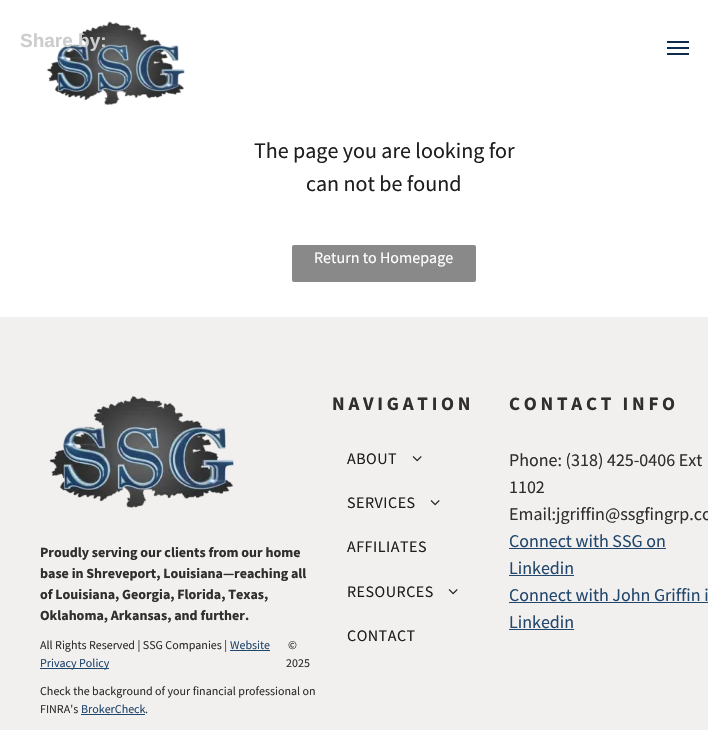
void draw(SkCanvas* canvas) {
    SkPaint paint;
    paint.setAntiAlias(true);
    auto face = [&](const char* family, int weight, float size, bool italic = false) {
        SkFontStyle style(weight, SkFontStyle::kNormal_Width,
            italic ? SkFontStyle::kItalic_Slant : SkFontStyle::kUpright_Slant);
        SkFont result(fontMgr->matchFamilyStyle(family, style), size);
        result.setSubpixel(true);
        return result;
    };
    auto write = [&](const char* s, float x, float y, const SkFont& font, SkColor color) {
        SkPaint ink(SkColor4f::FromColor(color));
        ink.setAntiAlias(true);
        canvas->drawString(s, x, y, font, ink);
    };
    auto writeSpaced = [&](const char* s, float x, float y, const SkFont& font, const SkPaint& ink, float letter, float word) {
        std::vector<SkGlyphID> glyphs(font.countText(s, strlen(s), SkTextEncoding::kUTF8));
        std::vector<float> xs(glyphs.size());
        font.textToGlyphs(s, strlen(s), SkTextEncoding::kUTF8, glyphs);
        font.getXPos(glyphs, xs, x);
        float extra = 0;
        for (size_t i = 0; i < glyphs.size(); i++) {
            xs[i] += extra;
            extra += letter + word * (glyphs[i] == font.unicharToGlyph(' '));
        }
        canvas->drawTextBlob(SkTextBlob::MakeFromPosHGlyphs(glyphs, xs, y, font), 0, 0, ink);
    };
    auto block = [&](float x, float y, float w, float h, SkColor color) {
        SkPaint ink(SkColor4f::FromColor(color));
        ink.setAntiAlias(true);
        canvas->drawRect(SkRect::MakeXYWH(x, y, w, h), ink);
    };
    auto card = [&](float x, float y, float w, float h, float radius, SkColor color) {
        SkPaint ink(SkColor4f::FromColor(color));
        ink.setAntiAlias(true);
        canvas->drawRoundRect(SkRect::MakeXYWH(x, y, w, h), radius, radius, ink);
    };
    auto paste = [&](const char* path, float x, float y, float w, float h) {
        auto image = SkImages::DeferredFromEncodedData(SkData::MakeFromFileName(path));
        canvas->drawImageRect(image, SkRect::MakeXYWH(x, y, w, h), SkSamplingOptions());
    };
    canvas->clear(SK_ColorWHITE);
    paste("pic1.png", 47, 21, 138, 84);
    auto kFont1 = face("Liberation Sans", 700, 19);
    write("Share by:", 20, 47, kFont1, SkColorSetRGB(204, 205, 206));
    block(667, 41, 22, 2, SkColorSetRGB(11, 44, 76));
    block(667, 47, 22, 2, SkColorSetRGB(11, 44, 76));
    block(667, 53, 22, 2, SkColorSetRGB(11, 44, 76));
    auto kFont2 = face("Source Sans Pro", 400, 22);
    write("The page you are looking for", 254, 158, kFont2, SkColorSetRGB(30, 30, 30));
    write("can not be found", 306, 191, kFont2, SkColorSetRGB(30, 30, 30));
    card(292, 245, 184, 37, 2, SkColorSetRGB(137, 137, 137));
    auto kFont3 = face("Source Sans Pro", 400, 16);
    write("Return to Homepage", 314, 263, kFont3, SK_ColorWHITE);
    block(0, 317, 708, 413, SkColorSetRGB(242, 239, 239));
    paste("pic2.png", 49, 396, 185, 112);
    auto kFont4 = face("Source Sans Pro", 700, 14);
    write("Proudly serving our clients from our home", 40, 557, kFont4, SkColorSetRGB(49, 46, 46));
    write("base in Shreveport, Louisiana—reaching all", 40, 578, kFont4, SkColorSetRGB(49, 46, 46));
    write("of Louisiana, Georgia, Florida, Texas,", 40, 599, kFont4, SkColorSetRGB(49, 46, 46));
    write("Oklahoma, Arkansas, and further.", 40, 620, kFont4, SkColorSetRGB(49, 46, 46));
    auto kFont5 = face("Source Sans Pro", 400, 12);
    write("All Rights Reserved | SSG Companies |", 40, 649, kFont5, SkColorSetRGB(49, 46, 46));
    write("Website", 230, 649, kFont5, SkColorSetRGB(34, 71, 108));
    block(230, 650, 40, 1, SkColorSetRGB(34, 71, 108));
    block(40, 668, 69, 1, SkColorSetRGB(34, 71, 108));
    write("Privacy Policy", 40, 667, kFont5, SkColorSetRGB(34, 71, 108));
    write("©", 288, 649, kFont5, SkColorSetRGB(49, 46, 46));
    write("2025", 286, 667, kFont5, SkColorSetRGB(49, 46, 46));
    write("Check the background of your financial professional on", 40, 695, kFont5, SkColorSetRGB(49, 46, 46));
    write("FINRA's", 40, 713, kFont5, SkColorSetRGB(49, 46, 46));
    write("BrokerCheck", 81, 713, kFont5, SkColorSetRGB(34, 71, 108));
    block(81, 714, 64, 1, SkColorSetRGB(34, 71, 108));
    write(".", 145, 713, kFont5, SkColorSetRGB(49, 46, 46));
    auto kFont6 = face("Source Sans Pro", 700, 19);
    paint.setColor(SkColorSetRGB(49, 46, 46));
    writeSpaced("NAVIGATION", 332, 410, kFont6, paint, 3.75f, 0);
    paint.setColor(SkColorSetRGB(30, 30, 30));
    writeSpaced("ABOUT", 347, 464, kFont3, paint, 0.5f, 0);
    paste("pic3.png", 412, 456, 10, 6);
    writeSpaced("SERVICES", 347, 508, kFont3, paint, 0.5f, 0);
    paste("pic3.png", 430, 500, 10, 6);
    writeSpaced("AFFILIATES", 347, 552, kFont3, paint, 0.5f, 0);
    writeSpaced("RESOURCES", 347, 597, kFont3, paint, 0.5f, 0);
    paste("pic3.png", 448, 589, 10, 6);
    writeSpaced("CONTACT", 347, 641, kFont3, paint, 0.5f, 0);
    paint.setColor(SkColorSetRGB(49, 46, 46));
    writeSpaced("CONTACT INFO", 509, 410, kFont6, paint, 3.75f, 0);
    auto kFont7 = face("Source Sans Pro", 400, 18);
    write("Phone: (318) 425-0406 Ext", 509, 466, kFont7, SkColorSetRGB(49, 46, 46));
    write("1102", 509, 493, kFont7, SkColorSetRGB(49, 46, 46));
    write("Email:jgriffin@ssgfingrp.co", 509, 520, kFont7, SkColorSetRGB(49, 46, 46));
    write("Connect with SSG on", 509, 547, kFont7, SkColorSetRGB(34, 71, 108));
    block(509, 548, 157, 1, SkColorSetRGB(34, 71, 108));
    write("Linkedin", 509, 574, kFont7, SkColorSetRGB(34, 71, 108));
    block(509, 575, 65, 1, SkColorSetRGB(34, 71, 108));
    write("Connect with John Griffin i", 509, 601, kFont7, SkColorSetRGB(34, 71, 108));
    block(509, 602, 199, 1, SkColorSetRGB(34, 71, 108));
    write("Linkedin", 509, 628, kFont7, SkColorSetRGB(34, 71, 108));
    block(509, 629, 65, 1, SkColorSetRGB(34, 71, 108));
}
